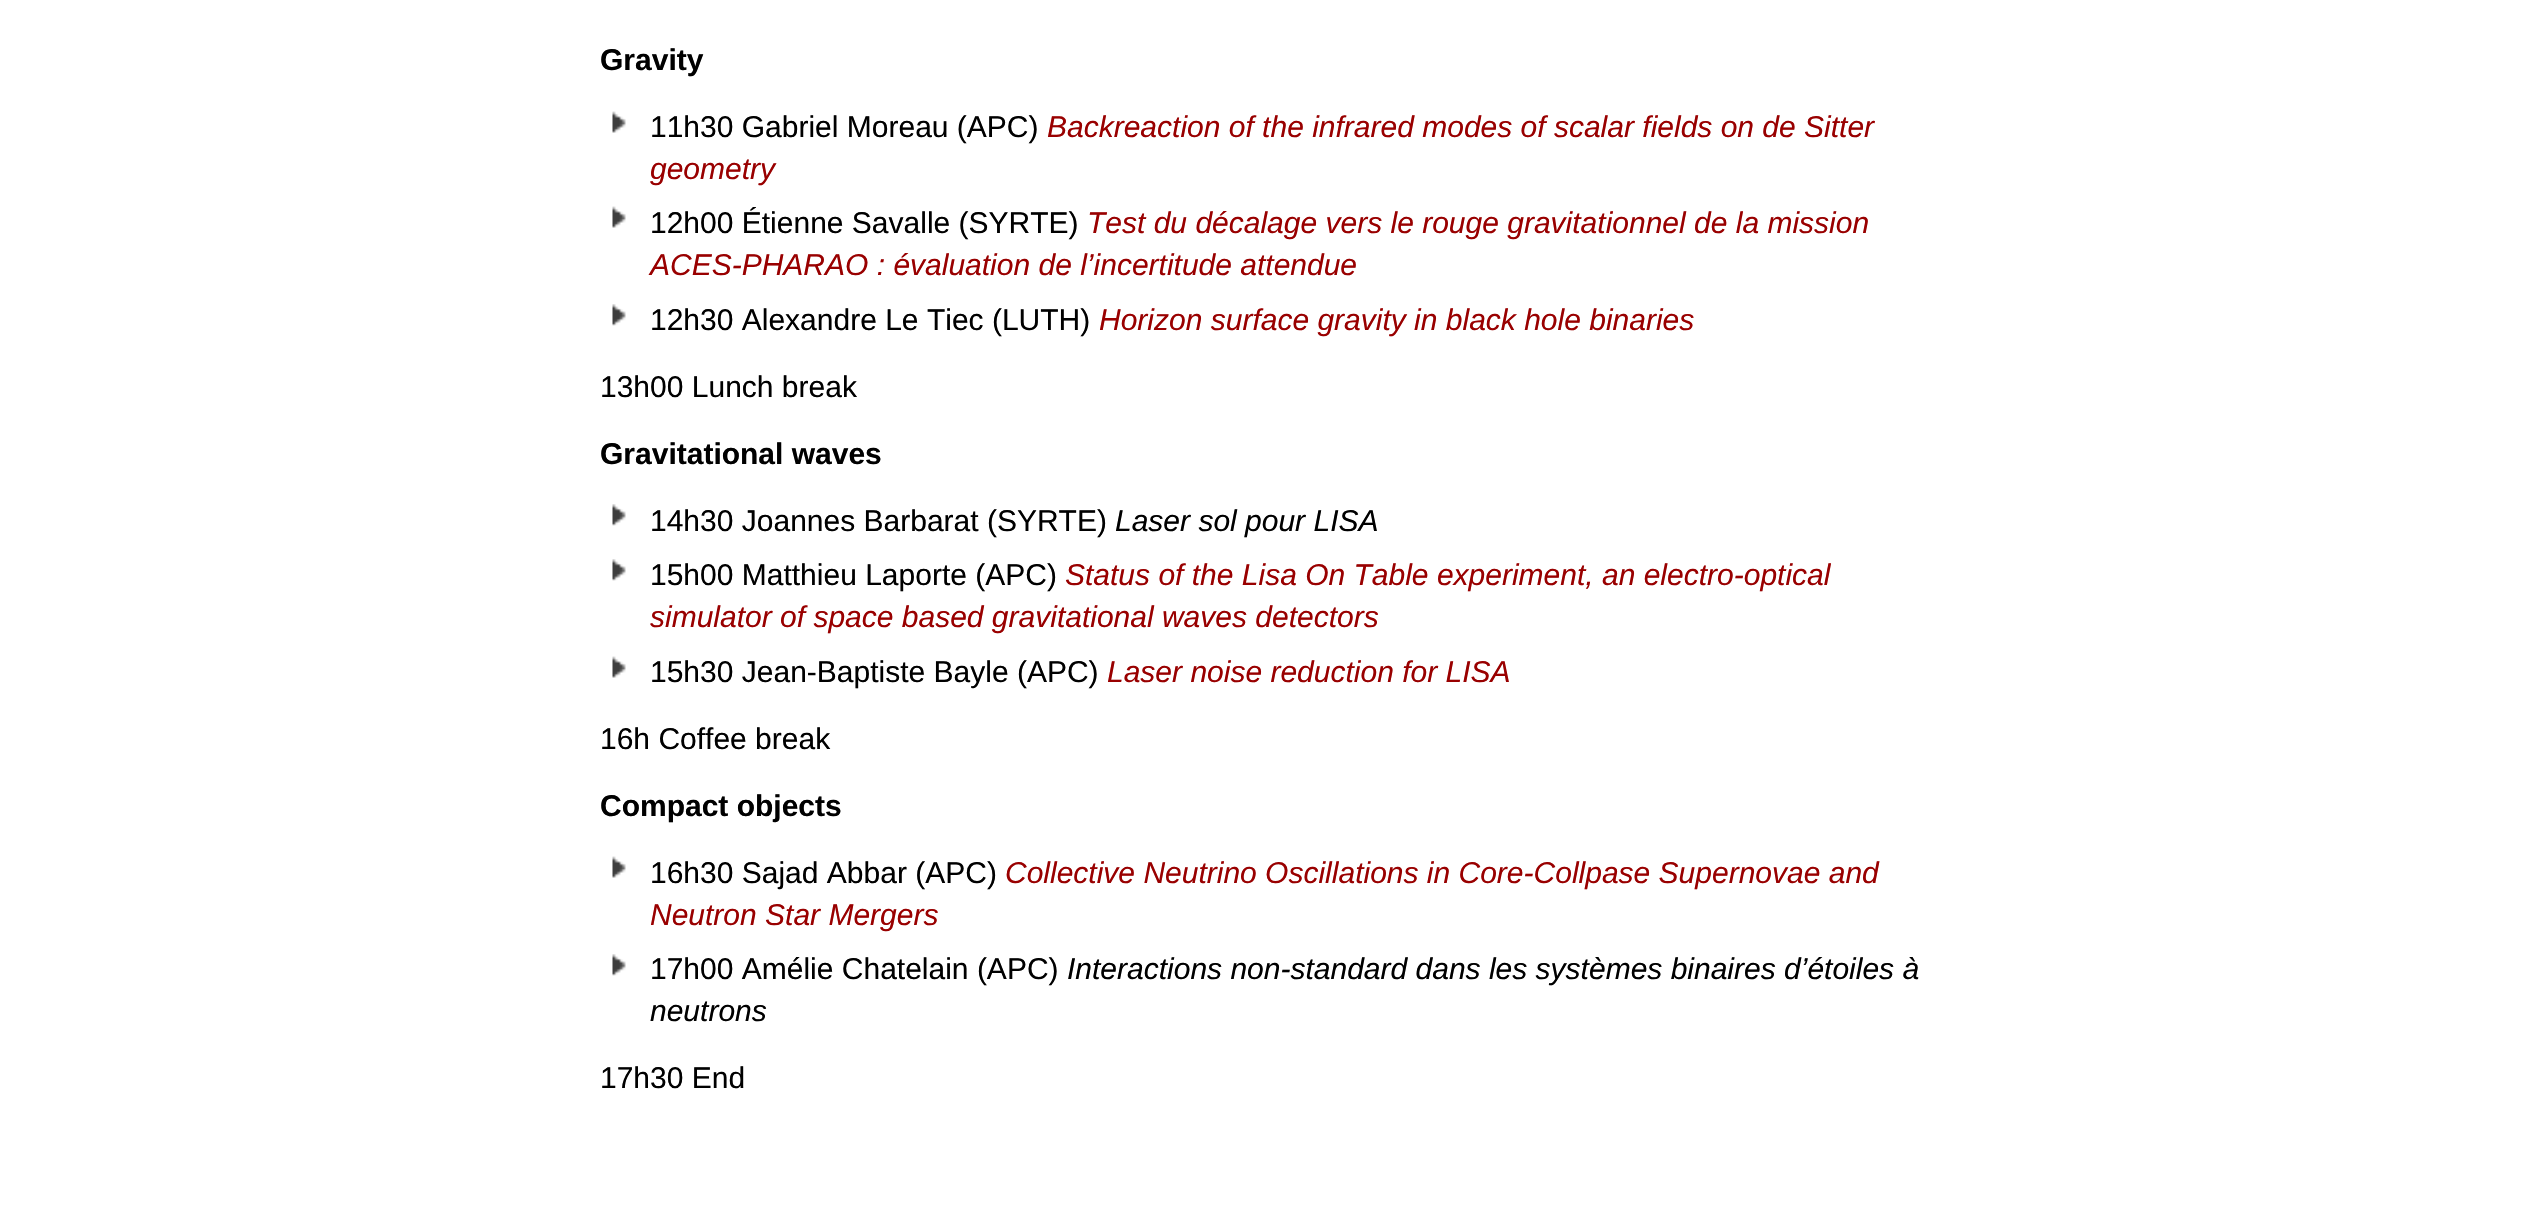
void draw(SkCanvas* canvas) {
    SkPaint paint;
    paint.setAntiAlias(true);
    auto face = [&](const char* family, int weight, float size, bool italic = false) {
        SkFontStyle style(weight, SkFontStyle::kNormal_Width,
            italic ? SkFontStyle::kItalic_Slant : SkFontStyle::kUpright_Slant);
        SkFont result(fontMgr->matchFamilyStyle(family, style), size);
        result.setSubpixel(true);
        return result;
    };
    auto write = [&](const char* s, float x, float y, const SkFont& font, SkColor color) {
        SkPaint ink(SkColor4f::FromColor(color));
        ink.setAntiAlias(true);
        canvas->drawString(s, x, y, font, ink);
    };
    auto paste = [&](const char* path, float x, float y, float w, float h) {
        auto image = SkImages::DeferredFromEncodedData(SkData::MakeFromFileName(path));
        canvas->drawImageRect(image, SkRect::MakeXYWH(x, y, w, h), SkSamplingOptions());
    };
    canvas->clear(SK_ColorWHITE);
    auto kFont1 = face("Liberation Sans", 700, 30);
    write("Gravity", 600, 70, kFont1, SK_ColorBLACK);
    paste("pic1.png", 612, 111, 14, 22);
    auto kFont2 = face("Liberation Sans", 400, 30);
    write("11h30 Gabriel Moreau (APC)", 650, 137, kFont2, SK_ColorBLACK);
    auto kFont3 = face("Liberation Sans", 400, 30, true);
    write("Backreaction of the infrared modes of scalar fields on de Sitter", 1047, 137, kFont3, SkColorSetRGB(153, 0, 0));
    write("geometry", 650, 179, kFont3, SkColorSetRGB(153, 0, 0));
    paste("pic1.png", 612, 206, 14, 22);
    write("12h00 Étienne Savalle (SYRTE)", 650, 233, kFont2, SK_ColorBLACK);
    write("Test du décalage vers le rouge gravitationnel de la mission", 1087, 233, kFont3, SkColorSetRGB(153, 0, 0));
    write("ACES-PHARAO : évaluation de l’incertitude attendue", 650, 275, kFont3, SkColorSetRGB(153, 0, 0));
    paste("pic2.png", 612, 304, 14, 22);
    write("12h30 Alexandre Le Tiec (LUTH)", 650, 330, kFont2, SK_ColorBLACK);
    write("Horizon surface gravity in black hole binaries", 1099, 330, kFont3, SkColorSetRGB(153, 0, 0));
    write("13h00 Lunch break", 600, 397, kFont2, SK_ColorBLACK);
    write("Gravitational waves", 600, 464, kFont1, SK_ColorBLACK);
    paste("pic2.png", 612, 504, 14, 22);
    write("14h30 Joannes Barbarat (SYRTE)", 650, 531, kFont2, SK_ColorBLACK);
    write("Laser sol pour LISA", 1115, 531, kFont3, SK_ColorBLACK);
    paste("pic2.png", 612, 559, 14, 22);
    write("15h00 Matthieu Laporte (APC)", 650, 585, kFont2, SK_ColorBLACK);
    write("Status of the Lisa On Table experiment, an electro-optical", 1065, 585, kFont3, SkColorSetRGB(153, 0, 0));
    write("simulator of space based gravitational waves detectors", 650, 627, kFont3, SkColorSetRGB(153, 0, 0));
    paste("pic1.png", 612, 656, 14, 22);
    write("15h30 Jean-Baptiste Bayle (APC)", 650, 682, kFont2, SK_ColorBLACK);
    write("Laser noise reduction for LISA", 1107, 682, kFont3, SkColorSetRGB(153, 0, 0));
    write("16h Coffee break", 600, 749, kFont2, SK_ColorBLACK);
    write("Compact objects", 600, 816, kFont1, SK_ColorBLACK);
    paste("pic1.png", 612, 856, 14, 22);
    write("16h30 Sajad Abbar (APC)", 650, 883, kFont2, SK_ColorBLACK);
    write("Collective Neutrino Oscillations in Core-Collpase Supernovae and", 1005, 883, kFont3, SkColorSetRGB(153, 0, 0));
    write("Neutron Star Mergers", 650, 925, kFont3, SkColorSetRGB(153, 0, 0));
    paste("pic2.png", 612, 954, 14, 22);
    write("17h00 Amélie Chatelain (APC)", 650, 979, kFont2, SK_ColorBLACK);
    write("Interactions non-standard dans les systèmes binaires d’étoiles à", 1067, 979, kFont3, SK_ColorBLACK);
    write("neutrons", 650, 1021, kFont3, SK_ColorBLACK);
    write("17h30 End", 600, 1088, kFont2, SK_ColorBLACK);
}
